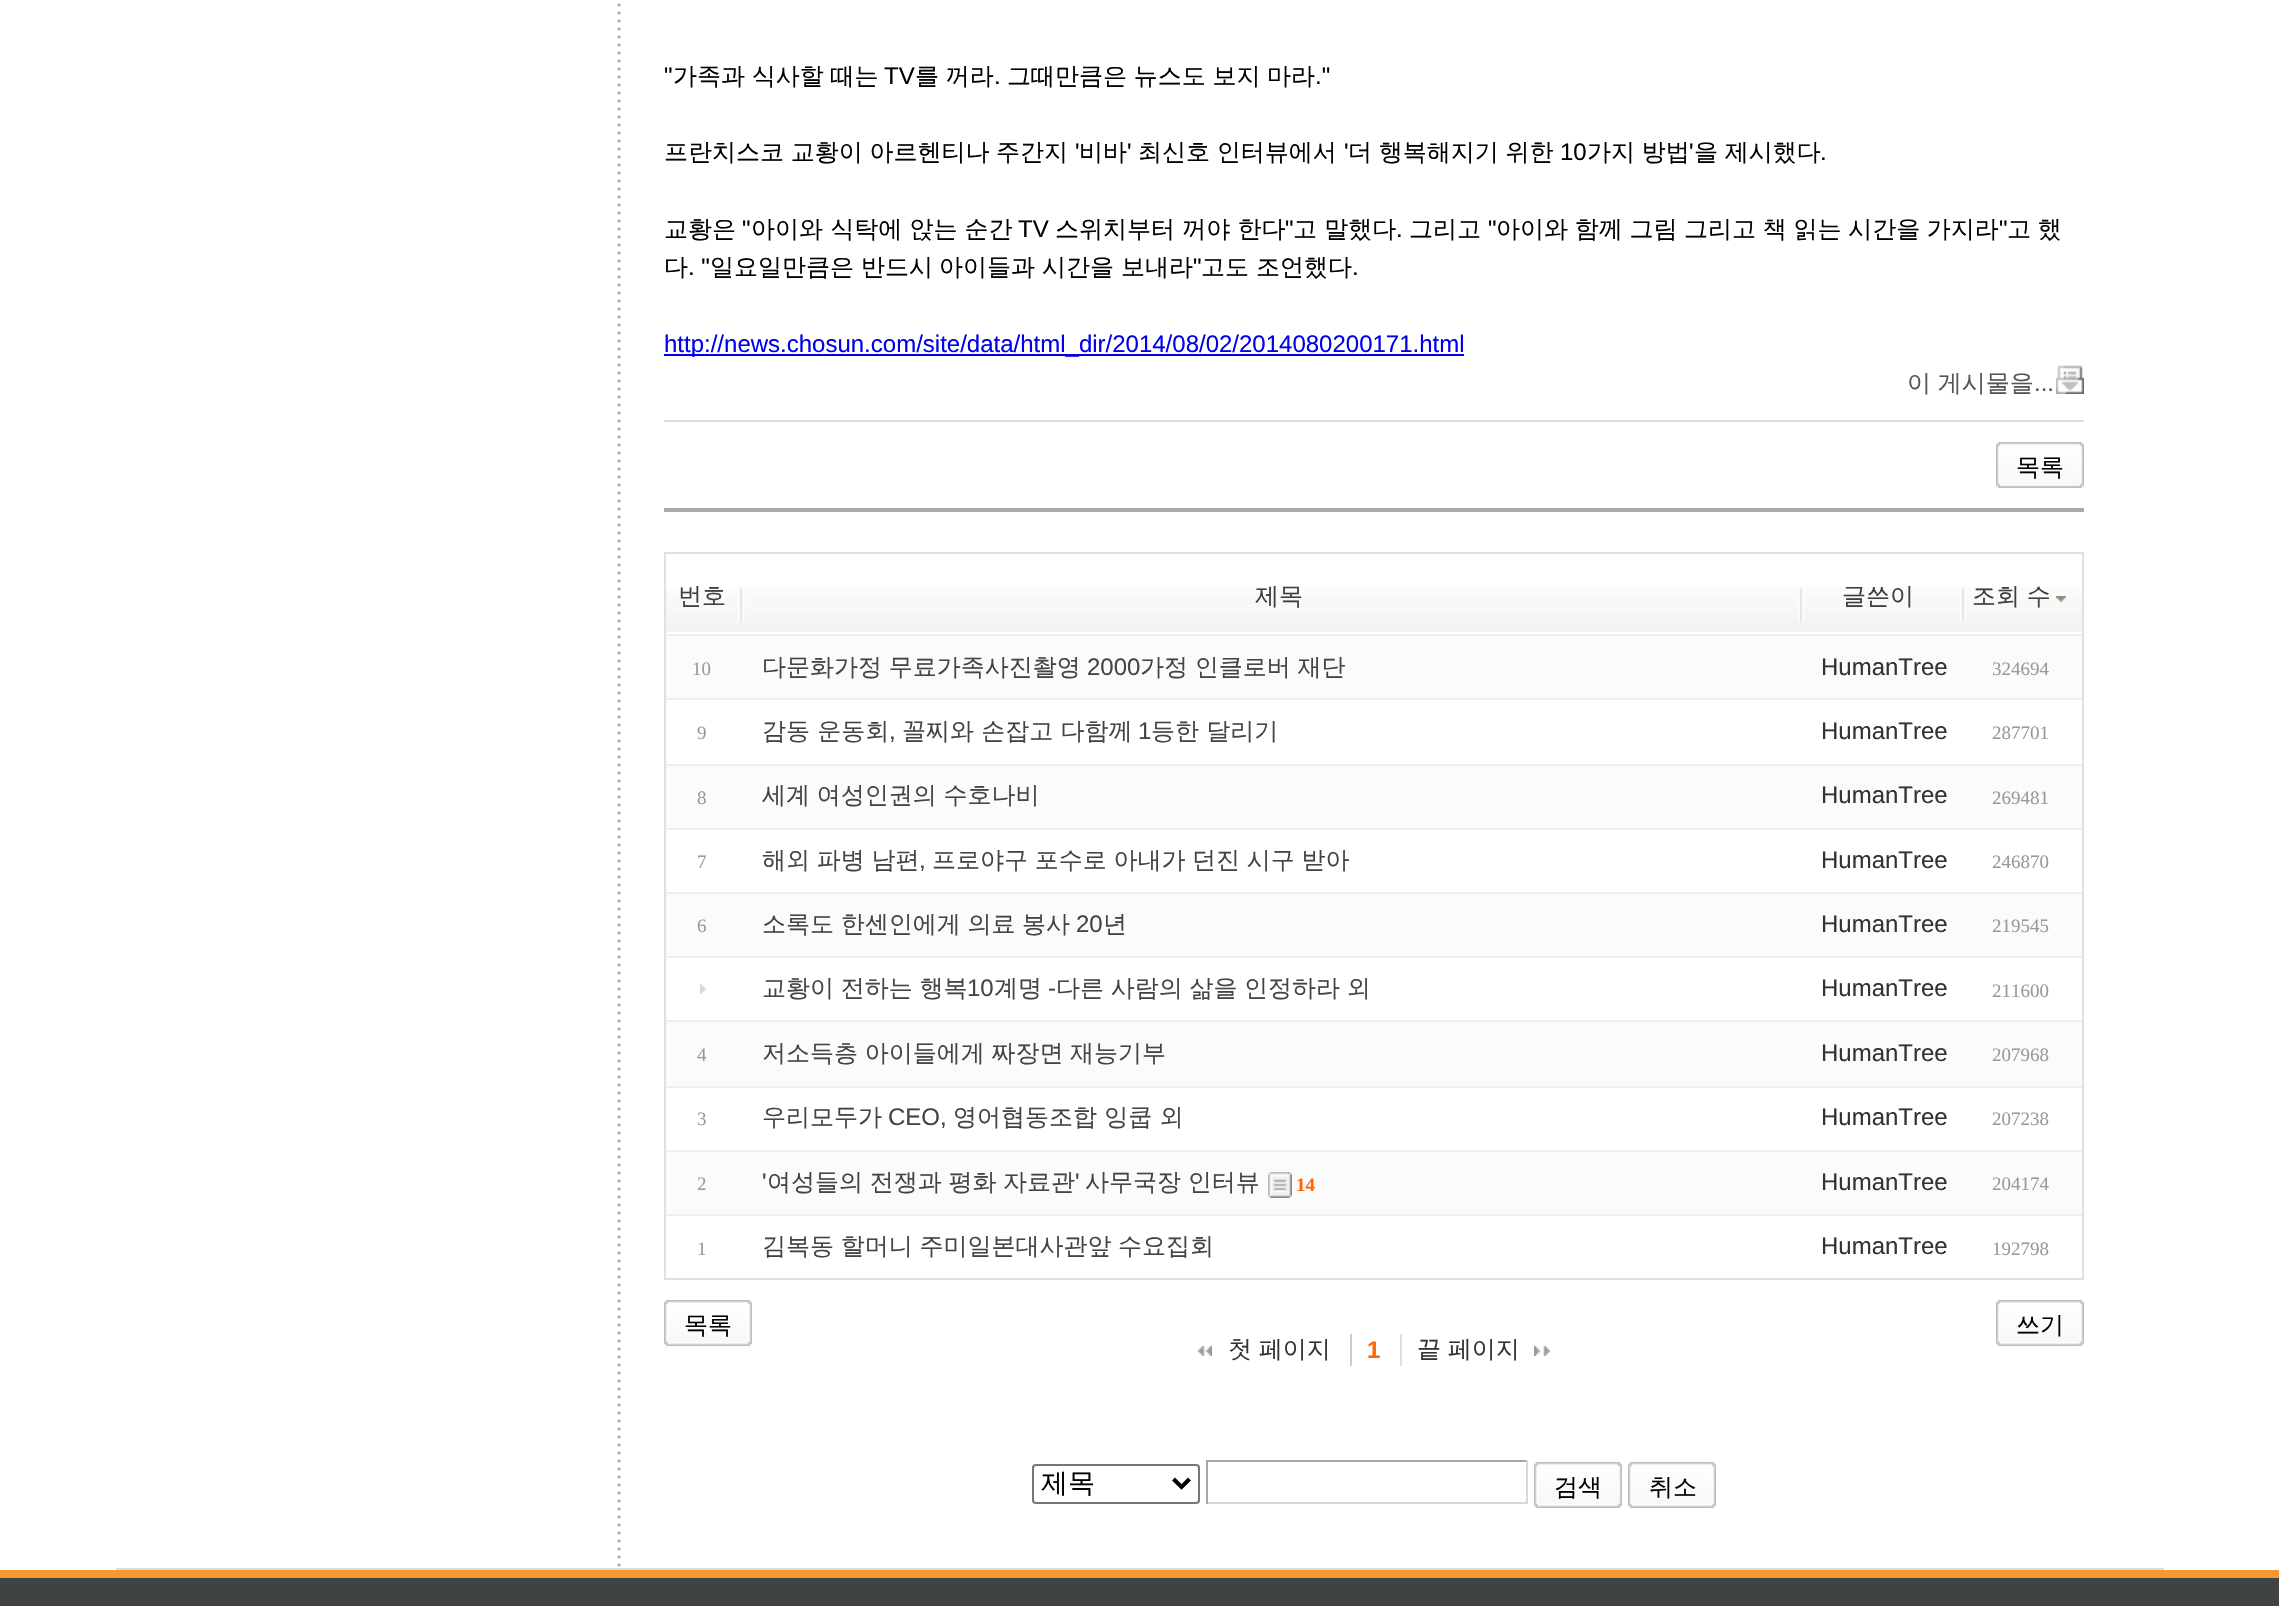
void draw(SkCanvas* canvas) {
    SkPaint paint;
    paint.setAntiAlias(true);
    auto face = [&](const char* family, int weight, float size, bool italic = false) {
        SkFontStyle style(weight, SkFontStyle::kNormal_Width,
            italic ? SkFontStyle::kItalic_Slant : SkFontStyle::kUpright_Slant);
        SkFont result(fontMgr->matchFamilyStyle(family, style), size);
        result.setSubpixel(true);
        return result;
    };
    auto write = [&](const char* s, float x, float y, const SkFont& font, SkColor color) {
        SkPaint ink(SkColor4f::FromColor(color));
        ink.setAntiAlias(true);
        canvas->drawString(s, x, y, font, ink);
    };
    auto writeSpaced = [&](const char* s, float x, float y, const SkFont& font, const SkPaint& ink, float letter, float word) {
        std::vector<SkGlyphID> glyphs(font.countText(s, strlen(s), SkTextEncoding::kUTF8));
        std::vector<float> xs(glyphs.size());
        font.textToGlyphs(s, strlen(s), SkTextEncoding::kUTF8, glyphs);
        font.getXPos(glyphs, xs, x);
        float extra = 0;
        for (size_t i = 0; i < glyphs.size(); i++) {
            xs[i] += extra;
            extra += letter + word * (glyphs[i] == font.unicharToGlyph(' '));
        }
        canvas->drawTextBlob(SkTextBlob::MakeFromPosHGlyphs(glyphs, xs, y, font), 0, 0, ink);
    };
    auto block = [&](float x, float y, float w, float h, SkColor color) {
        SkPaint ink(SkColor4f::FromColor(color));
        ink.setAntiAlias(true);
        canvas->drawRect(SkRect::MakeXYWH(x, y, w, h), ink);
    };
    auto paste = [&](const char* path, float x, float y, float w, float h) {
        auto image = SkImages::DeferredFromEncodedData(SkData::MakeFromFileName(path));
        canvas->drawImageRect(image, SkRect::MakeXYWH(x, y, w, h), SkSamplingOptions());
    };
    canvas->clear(SK_ColorWHITE);
    paste("pic1.png", 617, 3, 4, 1564);
    block(116, 1568, 2048, 2, SkColorSetRGB(221, 221, 221));
    block(664, 508, 1420, 4, SkColorSetRGB(170, 170, 170));
    auto kFont1 = face("Liberation Sans", 400, 24);
    write("\"", 664, 84, kFont1, SK_ColorBLACK);
    auto kFont2 = face("WenQuanYi Zen Hei", 500, 24);
    paint.setColor(SK_ColorBLACK);
    writeSpaced("가족과 식사할 때는", 673, 84, kFont2, paint, 0, -0.5f);
    write("TV", 884, 84, kFont1, SK_ColorBLACK);
    writeSpaced("를 꺼라", 915, 84, kFont2, paint, 0, -0.5f);
    write(".", 994, 84, kFont1, SK_ColorBLACK);
    writeSpaced("그때만큼은 뉴스도 보지 마라", 1007, 84, kFont2, paint, 0, -0.5f);
    write(".\"", 1315, 84, kFont1, SK_ColorBLACK);
    writeSpaced("프란치스코 교황이 아르헨티나 주간지", 664, 160, kFont2, paint, 0, -0.5f);
    write("'", 1075, 160, kFont1, SK_ColorBLACK);
    write("비바", 1079, 160, kFont2, SK_ColorBLACK);
    write("'", 1127, 160, kFont1, SK_ColorBLACK);
    writeSpaced("최신호 인터뷰에서", 1138, 160, kFont2, paint, 0, -0.5f);
    write("'", 1344, 160, kFont1, SK_ColorBLACK);
    writeSpaced("더 행복해지기 위한", 1348, 160, kFont2, paint, 0, -0.5f);
    write("10", 1560, 160, kFont1, SK_ColorBLACK);
    writeSpaced("가지 방법", 1587, 160, kFont2, paint, 0, -0.5f);
    write("'", 1689, 160, kFont1, SK_ColorBLACK);
    writeSpaced("을 제시했다", 1694, 160, kFont2, paint, 0, -0.5f);
    write(".", 1820, 160, kFont1, SK_ColorBLACK);
    write("교황은", 664, 237, kFont2, SK_ColorBLACK);
    write("\"", 742, 237, kFont1, SK_ColorBLACK);
    write("아이와 식탁에 앉는 순간", 751, 237, kFont2, SK_ColorBLACK);
    write("TV", 1018, 237, kFont1, SK_ColorBLACK);
    write("스위치부터 꺼야 한다", 1055, 237, kFont2, SK_ColorBLACK);
    write("\"", 1285, 237, kFont1, SK_ColorBLACK);
    write("고 말했다", 1293, 237, kFont2, SK_ColorBLACK);
    write("그리고", 1409, 237, kFont2, SK_ColorBLACK);
    write("\"", 1488, 237, kFont1, SK_ColorBLACK);
    writeSpaced("아이와 함께 그림 그리고 책 읽는 시간을 가지라", 1496, 237, kFont2, paint, 0, -0.5f);
    write("\"", 1999, 237, kFont1, SK_ColorBLACK);
    writeSpaced("고 했", 2007, 237, kFont2, paint, 0, -0.5f);
    write(".", 1396, 237, kFont1, SK_ColorBLACK);
    write("다", 664, 275, kFont2, SK_ColorBLACK);
    write(". \"", 688, 275, kFont1, SK_ColorBLACK);
    write("일요일만큼은", 710, 275, kFont2, SK_ColorBLACK);
    write("반드시", 861, 275, kFont2, SK_ColorBLACK);
    write("아이들과", 939, 275, kFont2, SK_ColorBLACK);
    write("시간을", 1042, 275, kFont2, SK_ColorBLACK);
    write("보내라", 1121, 275, kFont2, SK_ColorBLACK);
    write("\"", 1193, 275, kFont1, SK_ColorBLACK);
    write("고도", 1201, 275, kFont2, SK_ColorBLACK);
    write("조언했다", 1256, 275, kFont2, SK_ColorBLACK);
    write(".", 1352, 275, kFont1, SK_ColorBLACK);
    block(664, 354, 800, 2, SkColorSetRGB(0, 0, 238));
    write("http://news.chosun.com/site/data/html_dir/2014/08/02/2014080200171.html", 664, 352, kFont1, SkColorSetRGB(0, 0, 238));
    paste("pic2.png", 2056, 365, 28, 29);
    paint.setColor(SkColorSetRGB(85, 85, 85));
    writeSpaced("이 게시물을", 1907, 391, kFont2, paint, 0, -0.5f);
    write("...", 2034, 391, kFont1, SkColorSetRGB(85, 85, 85));
    block(664, 420, 1420, 2, SkColorSetRGB(221, 221, 221));
    paste("pic3.png", 1996, 442, 4, 46);
    paste("pic4.png", 2000, 442, 84, 46);
    write("목록", 2016, 475, kFont2, SK_ColorBLACK);
    block(2082, 552, 2, 728, SkColorSetRGB(224, 225, 219));
    block(664, 1278, 1420, 2, SkColorSetRGB(224, 225, 219));
    block(664, 552, 2, 728, SkColorSetRGB(224, 225, 219));
    paste("pic5.png", 666, 589, 72, 43);
    block(666, 552, 1416, 2, SkColorSetRGB(224, 225, 219));
    write("번호", 678, 604, kFont2, SkColorSetRGB(62, 63, 62));
    paste("pic6.png", 738, 587, 1060, 45);
    write("제목", 1255, 604, kFont2, SkColorSetRGB(62, 63, 62));
    paste("pic7.png", 1798, 587, 162, 45);
    write("글쓴이", 1842, 604, kFont2, SkColorSetRGB(62, 63, 62));
    paste("pic8.png", 1960, 587, 122, 45);
    paint.setColor(SkColorSetRGB(62, 63, 62));
    writeSpaced("조회 수", 1972, 604, kFont2, paint, 0, -0.5f);
    paste("pic9.png", 2056, 596, 10, 6);
    block(666, 636, 1416, 62, SkColorSetRGB(251, 251, 251));
    block(666, 634, 1416, 2, SkColorSetRGB(239, 240, 237));
    auto kFont3 = face("Liberation Serif", 400, 19);
    write("10", 692, 675, kFont3, SkColorSetRGB(153, 153, 153));
    paint.setColor(SkColorSetRGB(68, 68, 68));
    writeSpaced("다문화가정 무료가족사진촬영", 762, 675, kFont2, paint, 0, -0.5f);
    write("2000", 1087, 675, kFont1, SkColorSetRGB(68, 68, 68));
    writeSpaced("가정 인클로버 재단", 1140, 675, kFont2, paint, 0, -0.5f);
    write("HumanTree", 1821, 675, kFont1, SkColorSetRGB(51, 51, 51));
    write("324694", 1992, 675, kFont3, SkColorSetRGB(153, 153, 153));
    block(666, 698, 1416, 2, SkColorSetRGB(239, 240, 237));
    write("9", 697, 739, kFont3, SkColorSetRGB(153, 153, 153));
    write("감동 운동회", 762, 739, kFont2, SkColorSetRGB(68, 68, 68));
    write(",", 889, 739, kFont1, SkColorSetRGB(68, 68, 68));
    write("꼴찌와 손잡고 다함께", 902, 739, kFont2, SkColorSetRGB(68, 68, 68));
    write("1", 1138, 739, kFont1, SkColorSetRGB(68, 68, 68));
    write("등한 달리기", 1151, 739, kFont2, SkColorSetRGB(68, 68, 68));
    write("HumanTree", 1821, 739, kFont1, SkColorSetRGB(51, 51, 51));
    write("287701", 1992, 739, kFont3, SkColorSetRGB(153, 153, 153));
    block(666, 766, 1416, 62, SkColorSetRGB(251, 251, 251));
    block(666, 764, 1416, 2, SkColorSetRGB(239, 240, 237));
    write("8", 697, 804, kFont3, SkColorSetRGB(153, 153, 153));
    writeSpaced("세계 여성인권의 수호나비", 762, 803, kFont2, paint, 0, -0.5f);
    write("HumanTree", 1821, 803, kFont1, SkColorSetRGB(51, 51, 51));
    write("269481", 1992, 804, kFont3, SkColorSetRGB(153, 153, 153));
    block(666, 828, 1416, 2, SkColorSetRGB(239, 240, 237));
    write("7", 697, 868, kFont3, SkColorSetRGB(153, 153, 153));
    writeSpaced("해외 파병 남편", 762, 868, kFont2, paint, 0, -0.5f);
    write(",", 919, 868, kFont1, SkColorSetRGB(68, 68, 68));
    writeSpaced("프로야구 포수로 아내가 던진 시구 받아", 932, 868, kFont2, paint, 0, -0.5f);
    write("HumanTree", 1821, 868, kFont1, SkColorSetRGB(51, 51, 51));
    write("246870", 1992, 868, kFont3, SkColorSetRGB(153, 153, 153));
    block(666, 894, 1416, 62, SkColorSetRGB(251, 251, 251));
    block(666, 892, 1416, 2, SkColorSetRGB(239, 240, 237));
    write("6", 697, 932, kFont3, SkColorSetRGB(153, 153, 153));
    writeSpaced("소록도 한센인에게 의료 봉사", 762, 932, kFont2, paint, 0, -0.5f);
    write("20", 1076, 932, kFont1, SkColorSetRGB(68, 68, 68));
    write("년", 1103, 932, kFont2, SkColorSetRGB(68, 68, 68));
    write("HumanTree", 1821, 932, kFont1, SkColorSetRGB(51, 51, 51));
    write("219545", 1992, 932, kFont3, SkColorSetRGB(153, 153, 153));
    block(666, 956, 1416, 2, SkColorSetRGB(239, 240, 237));
    paste("pic10.png", 700, 984, 6, 10);
    writeSpaced("교황이 전하는 행복", 762, 996, kFont2, paint, 0, -0.5f);
    write("10", 967, 996, kFont1, SkColorSetRGB(68, 68, 68));
    write("계명", 994, 996, kFont2, SkColorSetRGB(68, 68, 68));
    write("-", 1048, 996, kFont1, SkColorSetRGB(68, 68, 68));
    writeSpaced("다른 사람의 삶을 인정하라 외", 1056, 996, kFont2, paint, 0, -0.5f);
    write("HumanTree", 1821, 996, kFont1, SkColorSetRGB(51, 51, 51));
    write("211600", 1992, 997, kFont3, SkColorSetRGB(153, 153, 153));
    block(666, 1022, 1416, 64, SkColorSetRGB(251, 251, 251));
    block(666, 1020, 1416, 2, SkColorSetRGB(239, 240, 237));
    write("4", 697, 1061, kFont3, SkColorSetRGB(153, 153, 153));
    writeSpaced("저소득층 아이들에게 짜장면 재능기부", 762, 1061, kFont2, paint, 0, -0.5f);
    write("HumanTree", 1821, 1061, kFont1, SkColorSetRGB(51, 51, 51));
    write("207968", 1992, 1061, kFont3, SkColorSetRGB(153, 153, 153));
    block(666, 1086, 1416, 2, SkColorSetRGB(239, 240, 237));
    write("3", 697, 1125, kFont3, SkColorSetRGB(153, 153, 153));
    write("우리모두가", 762, 1125, kFont2, SkColorSetRGB(68, 68, 68));
    write("CEO,", 888, 1125, kFont1, SkColorSetRGB(68, 68, 68));
    write("영어협동조합 잉쿱 외", 953, 1125, kFont2, SkColorSetRGB(68, 68, 68));
    write("HumanTree", 1821, 1125, kFont1, SkColorSetRGB(51, 51, 51));
    write("207238", 1992, 1125, kFont3, SkColorSetRGB(153, 153, 153));
    block(666, 1152, 1416, 62, SkColorSetRGB(251, 251, 251));
    block(666, 1150, 1416, 2, SkColorSetRGB(239, 240, 237));
    write("2", 697, 1190, kFont3, SkColorSetRGB(153, 153, 153));
    write("'", 762, 1190, kFont1, SkColorSetRGB(68, 68, 68));
    writeSpaced("여성들의 전쟁과 평화 자료관", 767, 1190, kFont2, paint, 0, -0.5f);
    write("'", 1075, 1190, kFont1, SkColorSetRGB(68, 68, 68));
    writeSpaced("사무국장 인터뷰", 1085, 1190, kFont2, paint, 0, -0.5f);
    paste("pic11.png", 1268, 1172, 24, 26);
    auto kFont4 = face("Liberation Serif", 700, 19);
    write("14", 1296, 1191, kFont4, SkColorSetRGB(255, 102, 0));
    write("HumanTree", 1821, 1190, kFont1, SkColorSetRGB(51, 51, 51));
    write("204174", 1992, 1190, kFont3, SkColorSetRGB(153, 153, 153));
    block(666, 1214, 1416, 2, SkColorSetRGB(239, 240, 237));
    write("1", 697, 1255, kFont3, SkColorSetRGB(153, 153, 153));
    writeSpaced("김복동 할머니 주미일본대사관앞 수요집회", 762, 1254, kFont2, paint, 0, -0.5f);
    write("HumanTree", 1821, 1254, kFont1, SkColorSetRGB(51, 51, 51));
    write("192798", 1992, 1255, kFont3, SkColorSetRGB(153, 153, 153));
    paste("pic3.png", 664, 1300, 4, 46);
    paste("pic4.png", 668, 1300, 84, 46);
    write("목록", 684, 1333, kFont2, SK_ColorBLACK);
    paste("pic3.png", 1996, 1300, 4, 46);
    paste("pic4.png", 2000, 1300, 84, 46);
    write("쓰기", 2016, 1333, kFont2, SK_ColorBLACK);
    paste("pic12.png", 1198, 1346, 14, 10);
    paint.setColor(SkColorSetRGB(51, 51, 51));
    writeSpaced("첫 페이지", 1228, 1357, kFont2, paint, 0, -0.5f);
    block(1400, 1334, 2, 32, SkColorSetRGB(221, 221, 221));
    block(1350, 1334, 2, 32, SkColorSetRGB(204, 204, 204));
    auto kFont5 = face("Liberation Sans", 700, 24);
    write("1", 1367, 1358, kFont5, SkColorSetRGB(255, 102, 0));
    paste("pic13.png", 1534, 1346, 16, 10);
    writeSpaced("끝 페이지", 1417, 1357, kFont2, paint, 0, -0.5f);
    paint.setStyle(SkPaint::kStroke_Style);
    paint.setStrokeWidth(2);
    paint.setColor(SkColorSetRGB(118, 118, 118));
    canvas->drawRoundRect(SkRect::MakeXYWH(1033, 1465, 166, 38), 3, 3, paint);
    paint.setStrokeWidth(4);
    paint.setColor(SK_ColorBLACK);
    canvas->drawPath(SkPathBuilder().moveTo(1173.5f, 1479).lineTo(1181.5f, 1487).lineTo(1189.5f, 1479).detach(), paint);
    auto kFont6 = face("WenQuanYi Zen Hei", 500, 27);
    write("제목", 1041, 1492, kFont6, SK_ColorBLACK);
    block(1206, 1460, 322, 2, SkColorSetRGB(166, 166, 166));
    block(1526, 1460, 2, 44, SkColorSetRGB(216, 216, 216));
    block(1206, 1502, 322, 2, SkColorSetRGB(216, 216, 216));
    block(1206, 1460, 2, 44, SkColorSetRGB(166, 166, 166));
    paste("pic3.png", 1534, 1462, 4, 46);
    paste("pic4.png", 1538, 1462, 84, 46);
    write("검색", 1554, 1495, kFont2, SK_ColorBLACK);
    paste("pic3.png", 1628, 1462, 4, 46);
    paste("pic4.png", 1632, 1462, 84, 46);
    write("취소", 1649, 1495, kFont2, SK_ColorBLACK);
    block(0, 1578, 2279, 28, SkColorSetRGB(63, 67, 68));
    block(0, 1570, 2279, 8, SkColorSetRGB(248, 152, 48));
}
